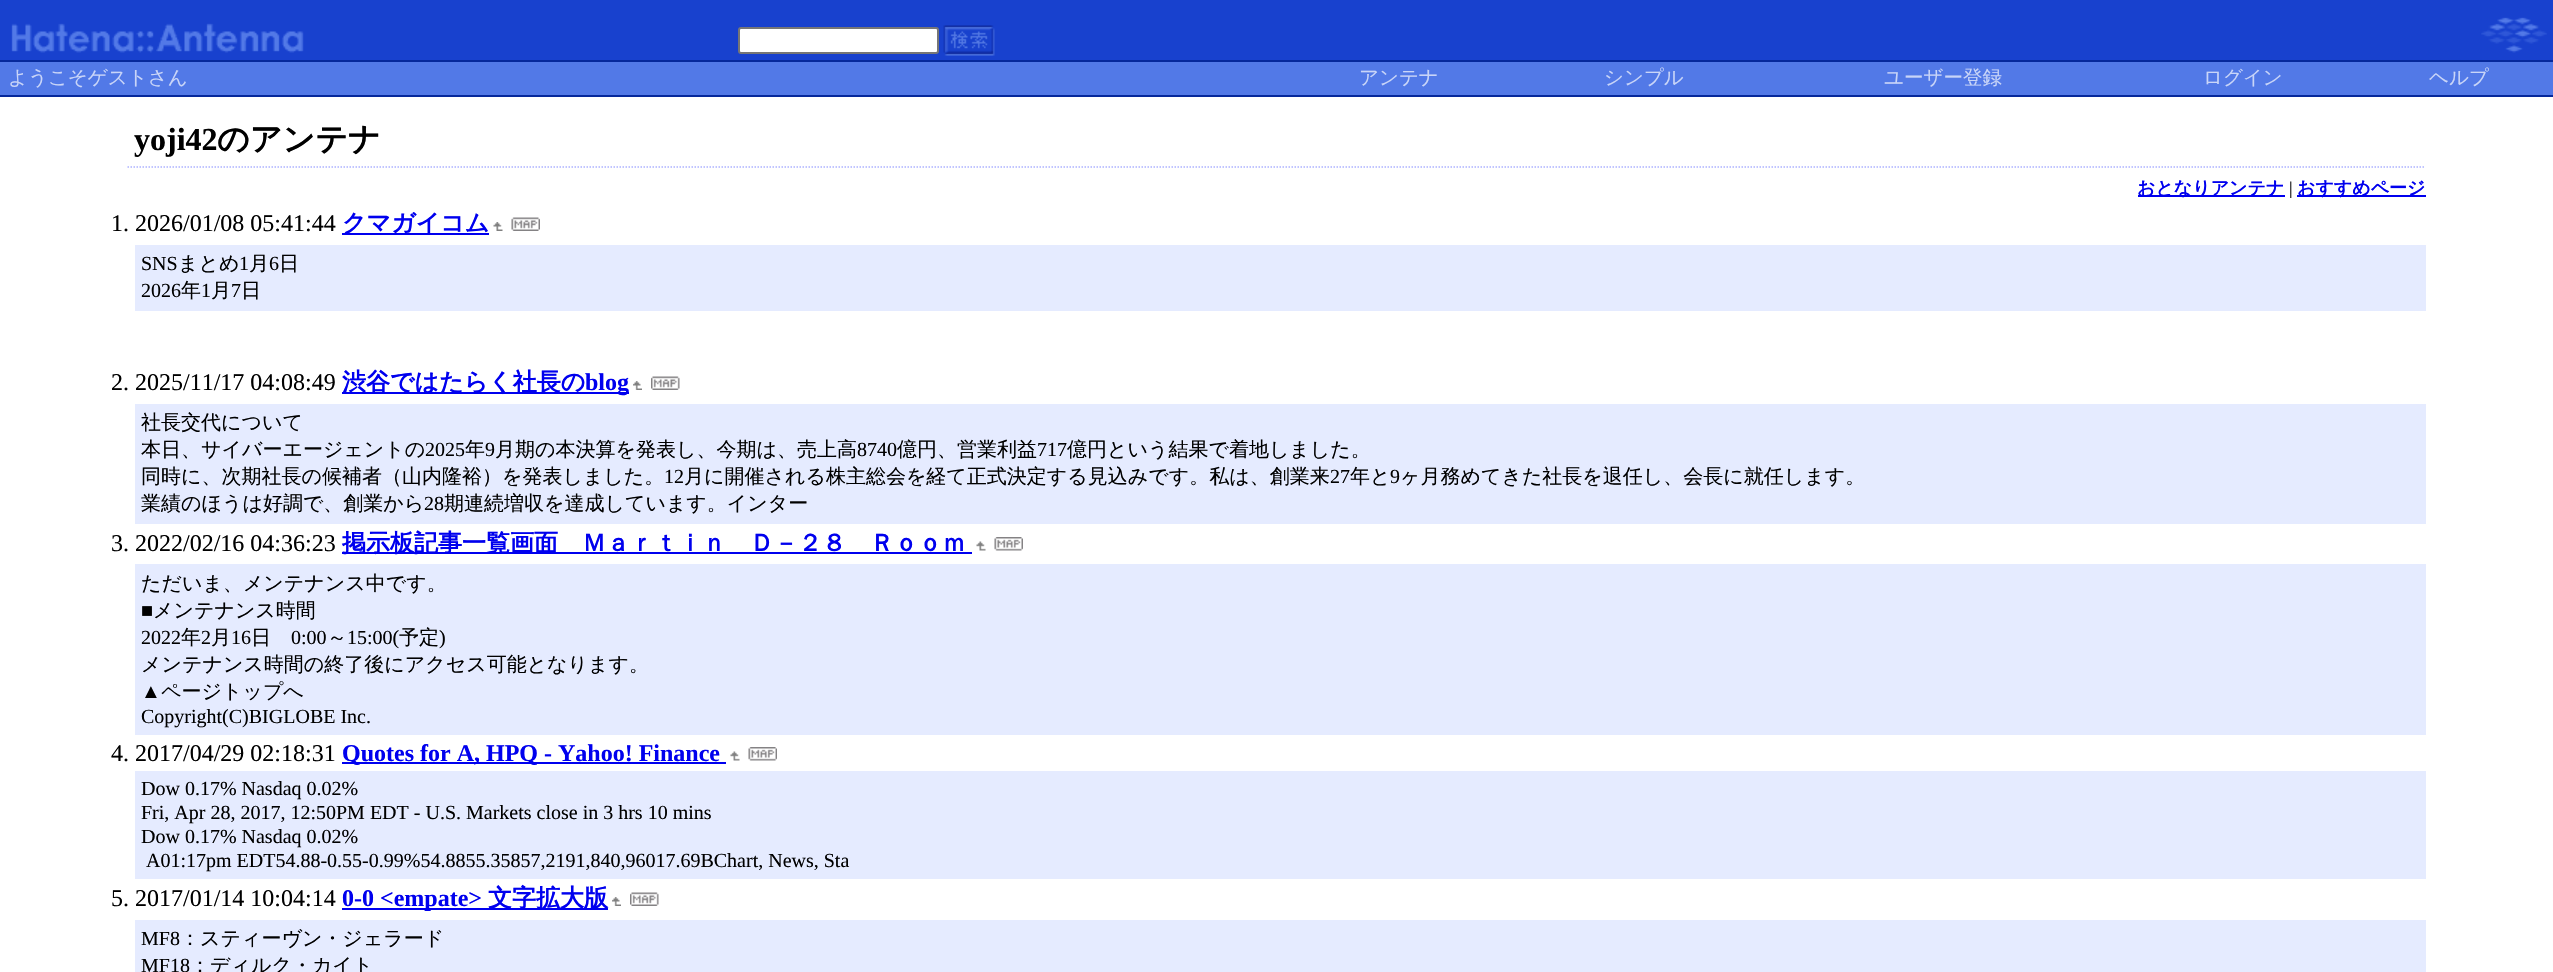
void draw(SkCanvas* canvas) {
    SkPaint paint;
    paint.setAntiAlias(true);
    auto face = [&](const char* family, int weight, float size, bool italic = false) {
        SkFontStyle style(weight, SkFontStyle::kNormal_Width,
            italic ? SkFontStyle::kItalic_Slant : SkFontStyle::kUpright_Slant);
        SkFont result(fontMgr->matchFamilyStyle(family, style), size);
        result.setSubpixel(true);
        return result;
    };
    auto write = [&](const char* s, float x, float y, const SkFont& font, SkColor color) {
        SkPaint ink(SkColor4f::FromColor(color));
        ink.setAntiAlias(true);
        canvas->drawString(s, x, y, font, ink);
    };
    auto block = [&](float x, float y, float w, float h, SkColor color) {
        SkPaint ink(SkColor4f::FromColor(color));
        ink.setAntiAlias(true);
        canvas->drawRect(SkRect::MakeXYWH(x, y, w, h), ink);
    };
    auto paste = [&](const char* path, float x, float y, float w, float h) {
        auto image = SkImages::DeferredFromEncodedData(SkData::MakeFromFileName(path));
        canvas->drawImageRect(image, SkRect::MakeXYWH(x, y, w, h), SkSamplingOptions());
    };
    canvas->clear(SK_ColorWHITE);
    block(0, 0, 2553, 60, SkColorSetRGB(24, 65, 206));
    paste("pic1.png", 11, 23, 143, 30);
    paste("pic2.png", 156, 23, 148, 30);
    paint.setColor(SK_ColorWHITE);
    canvas->drawRoundRect(SkRect::MakeXYWH(739, 28, 199, 25), 2, 2, paint);
    paint.setStyle(SkPaint::kStroke_Style);
    paint.setStrokeWidth(2);
    paint.setColor(SkColorSetRGB(118, 118, 118));
    canvas->drawRoundRect(SkRect::MakeXYWH(739, 28, 199, 25), 2, 2, paint);
    paste("pic3.png", 943, 25, 52, 31);
    paste("pic4.png", 2481, 17, 66, 36);
    block(0, 60, 2553, 2, SkColorSetRGB(6, 40, 155));
    block(0, 62, 2553, 33, SkColorSetRGB(82, 121, 231));
    auto kFont1 = face("WenQuanYi Zen Hei", 500, 19.5f);
    write("ようこそゲストさん", 8, 84, kFont1, SkColorSetRGB(201, 213, 248));
    write("アンテナ", 1359, 84, kFont1, SkColorSetRGB(201, 213, 248));
    write("シンプル", 1604, 84, kFont1, SkColorSetRGB(201, 213, 248));
    write("ユーザー登録", 1884, 84, kFont1, SkColorSetRGB(201, 213, 248));
    write("ログイン", 2203, 84, kFont1, SkColorSetRGB(201, 213, 248));
    write("ヘルプ", 2429, 84, kFont1, SkColorSetRGB(201, 213, 248));
    block(0, 95, 2553, 2, SkColorSetRGB(6, 40, 155));
    paint.setStrokeWidth(1.5f);
    paint.setColor(SkColorSetRGB(173, 178, 255));
    paint.setPathEffect(SkDashPathEffect::Make({{1.5f, 1.5f}}, 0));
    canvas->drawPath(SkPathBuilder().moveTo(127.5f, 167).lineTo(2425.5f, 167).detach(), paint);
    paint.setPathEffect(nullptr);
    auto kFont2 = face("Liberation Serif", 700, 32);
    write("yoji42", 134, 150, kFont2, SK_ColorBLACK);
    auto kFont3 = face("WenQuanYi Zen Hei", 700, 32);
    write("のアンテナ", 217, 150, kFont3, SK_ColorBLACK);
    block(2138, 195, 147, 2, SkColorSetRGB(0, 0, 238));
    auto kFont4 = face("WenQuanYi Zen Hei", 700, 18);
    write("おとなりアンテナ", 2137, 194, kFont4, SkColorSetRGB(0, 0, 238));
    auto kFont5 = face("Liberation Serif", 400, 18);
    write("|", 2289, 194, kFont5, SK_ColorBLACK);
    block(2297, 195, 129, 2, SkColorSetRGB(0, 0, 238));
    write("おすすめページ", 2297, 194, kFont4, SkColorSetRGB(0, 0, 238));
    auto kFont6 = face("Liberation Serif", 400, 24);
    write("1. 2026/01/08 05:41:44", 111, 231, kFont6, SK_ColorBLACK);
    block(342, 233, 147, 2, SkColorSetRGB(0, 0, 238));
    auto kFont7 = face("WenQuanYi Zen Hei", 700, 24);
    write("クマガイコム", 342, 231, kFont7, SkColorSetRGB(0, 0, 238));
    paste("pic5.png", 493, 222, 10, 9);
    paste("pic6.png", 511, 217, 29, 14);
    block(135, 245, 2291, 66, SkColorSetRGB(229, 235, 255));
    auto kFont8 = face("Liberation Serif", 400, 20);
    write("SNS", 141, 270, kFont8, SK_ColorBLACK);
    auto kFont9 = face("WenQuanYi Zen Hei", 500, 20);
    write("まとめ", 178, 270, kFont9, SK_ColorBLACK);
    write("1", 239, 270, kFont8, SK_ColorBLACK);
    write("月", 249, 270, kFont9, SK_ColorBLACK);
    write("6", 269, 270, kFont8, SK_ColorBLACK);
    write("日", 279, 270, kFont9, SK_ColorBLACK);
    write("2026", 141, 297, kFont8, SK_ColorBLACK);
    write("年", 181, 297, kFont9, SK_ColorBLACK);
    write("1", 201, 297, kFont8, SK_ColorBLACK);
    write("月", 211, 297, kFont9, SK_ColorBLACK);
    write("7", 231, 297, kFont8, SK_ColorBLACK);
    write("日", 241, 297, kFont9, SK_ColorBLACK);
    write("2. 2025/11/17 04:08:49", 111, 390, kFont6, SK_ColorBLACK);
    block(342, 392, 287, 2, SkColorSetRGB(0, 0, 238));
    write("渋谷ではたらく社長の", 342, 390, kFont7, SkColorSetRGB(0, 0, 238));
    auto kFont10 = face("Liberation Serif", 700, 24);
    write("blog", 585, 390, kFont10, SkColorSetRGB(0, 0, 238));
    paste("pic7.png", 633, 381, 9, 9);
    paste("pic8.png", 651, 376, 29, 14);
    block(135, 404, 2291, 120, SkColorSetRGB(229, 235, 255));
    write("社長交代について", 141, 429, kFont9, SK_ColorBLACK);
    write("本日、サイバーエージェントの", 141, 456, kFont9, SK_ColorBLACK);
    write("2025", 425, 456, kFont8, SK_ColorBLACK);
    write("年", 465, 456, kFont9, SK_ColorBLACK);
    write("9", 485, 456, kFont8, SK_ColorBLACK);
    write("月期の本決算を発表し、今期は、売上高", 495, 456, kFont9, SK_ColorBLACK);
    write("8740", 857, 456, kFont8, SK_ColorBLACK);
    write("億円、営業利益", 897, 456, kFont9, SK_ColorBLACK);
    write("717", 1037, 456, kFont8, SK_ColorBLACK);
    write("億円という結果で着地しました。", 1067, 456, kFont9, SK_ColorBLACK);
    write("同時に、次期社長の候補者（山内隆裕）を発表しました。", 141, 483, kFont9, SK_ColorBLACK);
    write("12", 664, 483, kFont8, SK_ColorBLACK);
    write("月に開催される株主総会を経て正式決定する見込みです。私は、創業来", 684, 483, kFont9, SK_ColorBLACK);
    write("27", 1330, 483, kFont8, SK_ColorBLACK);
    write("年と", 1350, 483, kFont9, SK_ColorBLACK);
    write("9", 1390, 483, kFont8, SK_ColorBLACK);
    write("ヶ月務めてきた社長を退任し、会長に就任します。", 1400, 483, kFont9, SK_ColorBLACK);
    write("業績のほうは好調で、創業から", 141, 510, kFont9, SK_ColorBLACK);
    write("28", 424, 510, kFont8, SK_ColorBLACK);
    write("期連続増収を達成しています。インター", 444, 510, kFont9, SK_ColorBLACK);
    write("3. 2022/02/16 04:36:23", 111, 551, kFont6, SK_ColorBLACK);
    block(342, 552, 630, 2, SkColorSetRGB(0, 0, 238));
    write("掲示板記事一覧画面　Ｍａｒｔｉｎ　Ｄ－２８　Ｒｏｏｍ", 342, 551, kFont7, SkColorSetRGB(0, 0, 238));
    paste("pic9.png", 976, 541, 10, 10);
    paste("pic10.png", 994, 537, 29, 14);
    block(135, 564, 2291, 171, SkColorSetRGB(229, 235, 255));
    write("ただいま、メンテナンス中です。", 141, 590, kFont9, SK_ColorBLACK);
    write("■", 141, 617, kFont8, SK_ColorBLACK);
    write("メンテナンス時間", 153, 617, kFont9, SK_ColorBLACK);
    write("2022", 141, 644, kFont8, SK_ColorBLACK);
    write("年", 181, 644, kFont9, SK_ColorBLACK);
    write("2", 201, 644, kFont8, SK_ColorBLACK);
    write("月", 211, 644, kFont9, SK_ColorBLACK);
    write("16", 231, 644, kFont8, SK_ColorBLACK);
    write("日", 251, 644, kFont9, SK_ColorBLACK);
    write("0:00", 291, 644, kFont8, SK_ColorBLACK);
    write("～", 327, 644, kFont9, SK_ColorBLACK);
    write("15:00(", 347, 644, kFont8, SK_ColorBLACK);
    write("予定", 399, 644, kFont9, SK_ColorBLACK);
    write(")", 439, 644, kFont8, SK_ColorBLACK);
    write("メンテナンス時間の終了後にアクセス可能となります。", 141, 671, kFont9, SK_ColorBLACK);
    write("▲", 141, 698, kFont8, SK_ColorBLACK);
    write("ページトップへ", 161, 698, kFont9, SK_ColorBLACK);
    write("Copyright(C)BIGLOBE Inc.", 141, 723, kFont8, SK_ColorBLACK);
    write("4. 2017/04/29 02:18:31", 111, 761, kFont6, SK_ColorBLACK);
    block(342, 762, 384, 2, SkColorSetRGB(0, 0, 238));
    write("Quotes for A, HPQ - Yahoo! Finance", 342, 761, kFont10, SkColorSetRGB(0, 0, 238));
    paste("pic11.png", 730, 751, 10, 10);
    paste("pic12.png", 748, 747, 29, 14);
    block(135, 771, 2291, 108, SkColorSetRGB(229, 235, 255));
    write("Dow 0.17% Nasdaq 0.02%", 141, 795, kFont8, SK_ColorBLACK);
    write("Fri, Apr 28, 2017, 12:50PM EDT - U.S. Markets close in 3 hrs 10 mins", 141, 819, kFont8, SK_ColorBLACK);
    write("Dow 0.17% Nasdaq 0.02%", 141, 843, kFont8, SK_ColorBLACK);
    write(" A01:17pm EDT54.88-0.55-0.99%54.8855.35857,2191,840,96017.69BChart, News, Sta", 141, 867, kFont8, SK_ColorBLACK);
    write("5. 2017/01/14 10:04:14", 111, 906, kFont6, SK_ColorBLACK);
    block(342, 908, 266, 2, SkColorSetRGB(0, 0, 238));
    write("0-0 <empate>", 342, 906, kFont10, SkColorSetRGB(0, 0, 238));
    write("文字拡大版", 488, 906, kFont7, SkColorSetRGB(0, 0, 238));
    paste("pic7.png", 612, 897, 9, 9);
    paste("pic8.png", 630, 892, 29, 14);
    block(135, 920, 2291, 52, SkColorSetRGB(229, 235, 255));
    write("MF8", 141, 945, kFont8, SK_ColorBLACK);
    write("：スティーヴン・ジェラード", 180, 945, kFont9, SK_ColorBLACK);
    write("MF18", 141, 972, kFont8, SK_ColorBLACK);
    write("：ディルク・カイト", 190, 972, kFont9, SK_ColorBLACK);
}
